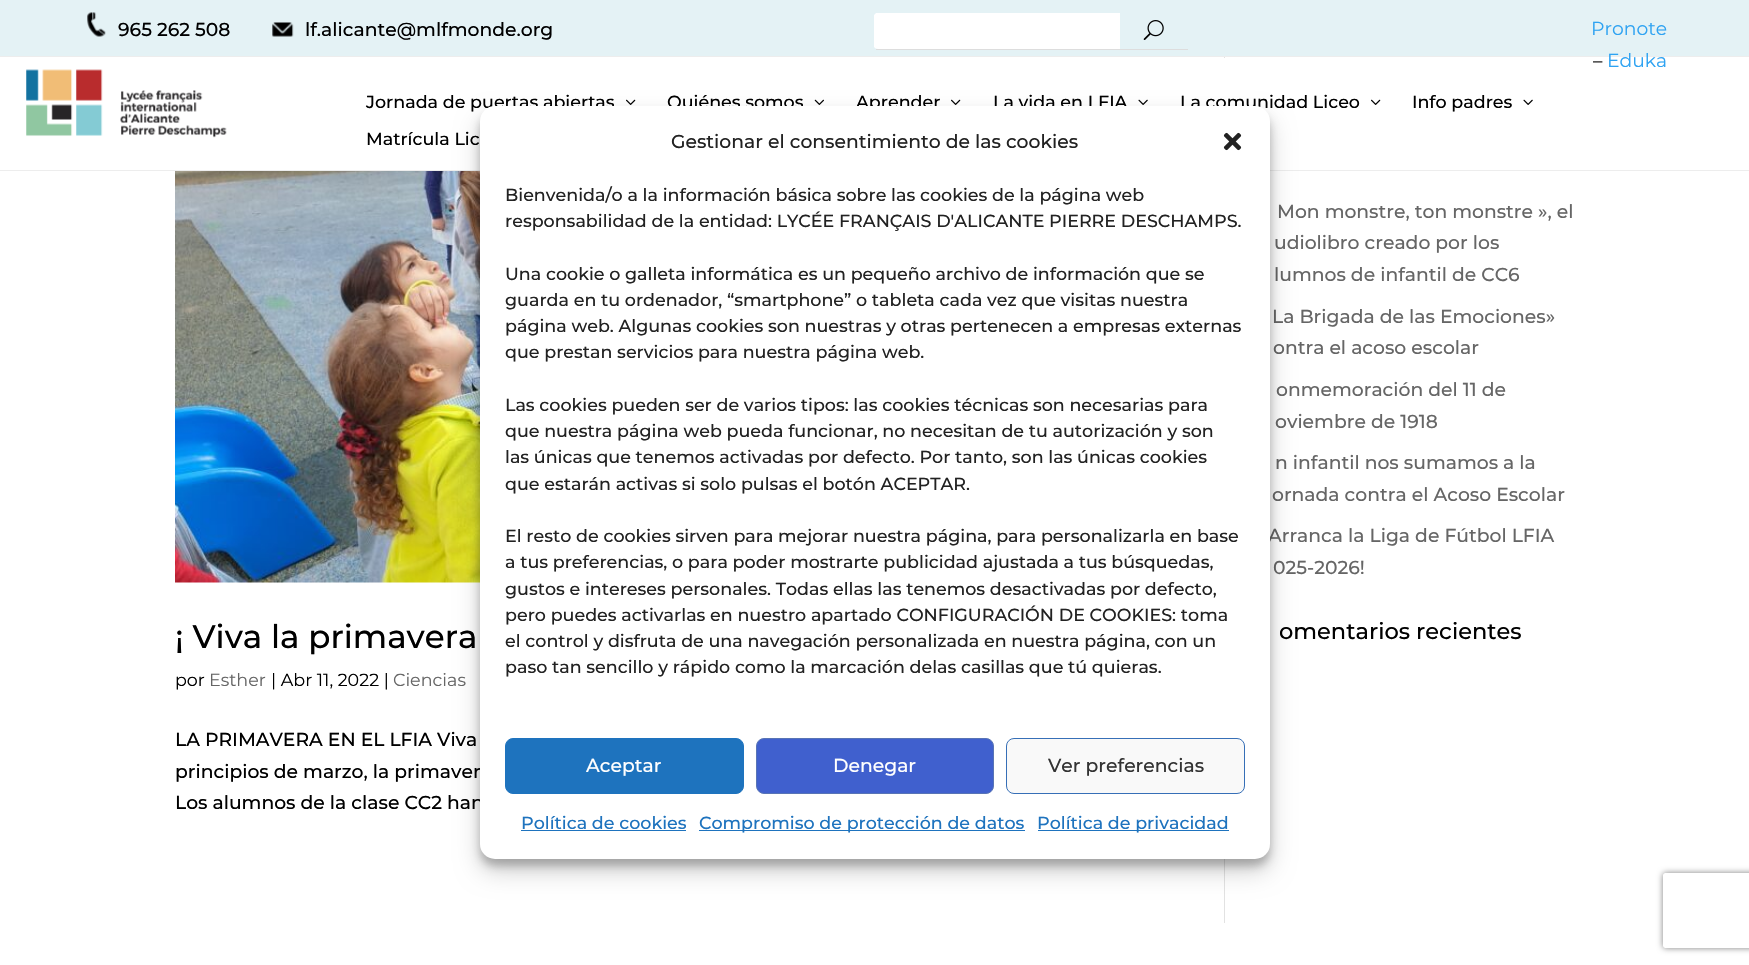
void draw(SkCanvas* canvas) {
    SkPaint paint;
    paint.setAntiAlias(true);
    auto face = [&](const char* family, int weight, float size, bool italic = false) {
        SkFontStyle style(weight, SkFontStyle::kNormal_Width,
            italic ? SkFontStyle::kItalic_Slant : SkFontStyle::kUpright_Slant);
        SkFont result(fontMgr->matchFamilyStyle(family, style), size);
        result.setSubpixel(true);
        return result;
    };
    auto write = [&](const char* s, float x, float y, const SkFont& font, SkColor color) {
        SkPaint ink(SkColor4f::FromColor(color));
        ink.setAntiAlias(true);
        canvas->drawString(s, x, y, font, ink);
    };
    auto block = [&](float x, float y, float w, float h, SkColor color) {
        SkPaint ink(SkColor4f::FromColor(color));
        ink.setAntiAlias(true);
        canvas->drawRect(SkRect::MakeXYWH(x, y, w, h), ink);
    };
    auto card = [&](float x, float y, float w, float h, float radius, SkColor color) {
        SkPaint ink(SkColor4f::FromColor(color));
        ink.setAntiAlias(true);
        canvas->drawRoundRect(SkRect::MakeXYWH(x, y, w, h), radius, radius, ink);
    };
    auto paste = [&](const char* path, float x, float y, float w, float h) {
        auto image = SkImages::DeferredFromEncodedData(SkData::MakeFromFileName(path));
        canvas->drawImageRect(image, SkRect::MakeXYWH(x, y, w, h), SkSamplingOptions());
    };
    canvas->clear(SK_ColorWHITE);
    block(0, 0, 1749, 56, SkColorSetRGB(228, 242, 245));
    block(0, 56, 1749, 1, SkColorSetRGB(237, 237, 237));
    paste("pic1.png", 87, 12, 19, 25);
    auto kFont1 = face("Montserrat", 100, 18.75f);
    write("965 262 508", 118, 36, kFont1, SK_ColorBLACK);
    paste("pic2.png", 272, 22, 22, 15);
    write("lf.alicante@mlfmonde.org", 305, 36, kFont1, SK_ColorBLACK);
    block(876, 49, 312, 1, SkColorSetRGB(221, 221, 221));
    paint.setColor(SK_ColorWHITE);
    canvas->drawPath(SkPathBuilder().moveTo(874, 15).lineTo(876, 13).lineTo(1120, 13).lineTo(1120, 49).lineTo(878, 49).cubicTo(876, 49, 875, 48, 874, 47).close().detach(), paint);
    paste("pic3.png", 1143, 20, 21, 20);
    auto kFont2 = face("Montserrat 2", 100, 18.75f);
    write("Pronote", 1591, 35, kFont2, SkColorSetRGB(46, 163, 242));
    write("–", 1593, 67, kFont2, SK_ColorBLACK);
    write("Eduka", 1607, 67, kFont2, SkColorSetRGB(46, 163, 242));
    block(1224, 57, 1, 866, SkColorSetRGB(226, 226, 226));
    block(1224, 58, 1, 112, SK_ColorWHITE);
    block(0, 170, 1749, 1, SkColorSetRGB(237, 237, 237));
    paste("pic4.png", 26, 69, 201, 69);
    auto kFont3 = face("Montserrat", 100, 17.5f);
    write("Jornada de puertas abiertas", 366, 108, kFont3, SK_ColorBLACK);
    paste("pic5.png", 626, 99, 10, 6);
    write("Quiénes somos", 667, 108, kFont3, SK_ColorBLACK);
    paste("pic6.png", 814, 99, 10, 6);
    write("Aprender", 856, 108, kFont3, SK_ColorBLACK);
    paste("pic5.png", 951, 99, 10, 6);
    write("La vida en LFIA", 993, 108, kFont3, SK_ColorBLACK);
    paste("pic7.png", 1138, 99, 10, 6);
    write("La comunidad Liceo", 1180, 108, kFont3, SK_ColorBLACK);
    paste("pic5.png", 1371, 99, 10, 6);
    write("Info padres", 1412, 108, kFont3, SK_ColorBLACK);
    paste("pic7.png", 1523, 99, 10, 6);
    write("Matrícula Lic", 366, 145, kFont3, SK_ColorBLACK);
    write("Mon monstre, ton monstre », el", 1277, 218, kFont1, SkColorSetRGB(102, 102, 102));
    write("udiolibro creado por los", 1274, 249, kFont1, SkColorSetRGB(102, 102, 102));
    write("lumnos de infantil de CC6", 1274, 281, kFont1, SkColorSetRGB(102, 102, 102));
    write("La Brigada de las Emociones»", 1272, 323, kFont1, SkColorSetRGB(102, 102, 102));
    write("ontra el acoso escolar", 1273, 354, kFont1, SkColorSetRGB(102, 102, 102));
    write("onmemoración del 11 de", 1276, 396, kFont1, SkColorSetRGB(102, 102, 102));
    write("oviembre de 1918", 1275, 428, kFont1, SkColorSetRGB(102, 102, 102));
    write("n infantil nos sumamos a la", 1275, 469, kFont1, SkColorSetRGB(102, 102, 102));
    write("ornada contra el Acoso Escolar", 1272, 501, kFont1, SkColorSetRGB(102, 102, 102));
    write("Arranca la Liga de Fútbol LFIA", 1268, 542, kFont1, SkColorSetRGB(102, 102, 102));
    write("025-2026!", 1273, 574, kFont1, SkColorSetRGB(102, 102, 102));
    auto kFont4 = face("Montserrat", 100, 22.5f);
    write("omentarios recientes", 1279, 639, kFont4, SK_ColorBLACK);
    paste("pic8.png", 175, 171, 305, 412);
    auto kFont5 = face("Montserrat", 100, 32.5f);
    write("¡ Viva la primavera", 175, 648, kFont5, SK_ColorBLACK);
    auto kFont6 = face("Montserrat 2", 100, 17.5f);
    write("por", 175, 686, kFont6, SK_ColorBLACK);
    write("Esther", 209, 686, kFont6, SkColorSetRGB(102, 102, 102));
    write("| Abr 11, 2022 |", 271, 686, kFont6, SK_ColorBLACK);
    write("Ciencias", 393, 686, kFont6, SkColorSetRGB(102, 102, 102));
    write("LA PRIMAVERA EN EL LFIA Viva", 175, 746, kFont1, SK_ColorBLACK);
    write("principios de marzo, la primaver", 175, 778, kFont1, SK_ColorBLACK);
    write("Los alumnos de la clase CC2 han", 175, 809, kFont1, SK_ColorBLACK);
    paint.setColor(SkColorSetARGB(59, 0, 0, 0));
    paint.setMaskFilter(SkMaskFilter::MakeBlur(kNormal_SkBlurStyle, 4));
    canvas->drawRoundRect(SkRect::MakeXYWH(480, 114, 790, 752), 15, 15, paint);
    paint.setMaskFilter(nullptr);
    paint.setColor(SkColorSetARGB(48, 0, 0, 0));
    paint.setMaskFilter(SkMaskFilter::MakeBlur(kNormal_SkBlurStyle, 12.5f));
    canvas->drawRoundRect(SkRect::MakeXYWH(480, 119, 790, 752), 15, 15, paint);
    paint.setMaskFilter(nullptr);
    card(480, 106, 790, 753, 15, SK_ColorWHITE);
    write("Gestionar el consentimiento de las cookies", 671, 148, kFont1, SkColorSetRGB(34, 34, 34));
    paste("pic9.png", 1223, 132, 19, 19);
    write("Bienvenida/o a la información básica sobre las cookies de la página web", 505, 201, kFont3, SkColorSetRGB(34, 34, 34));
    write("responsabilidad de la entidad: LYCÉE FRANÇAIS D'ALICANTE PIERRE DESCHAMPS.", 505, 227, kFont3, SkColorSetRGB(34, 34, 34));
    write("Una cookie o galleta informática es un pequeño archivo de información que se", 505, 280, kFont3, SkColorSetRGB(34, 34, 34));
    write("guarda en tu ordenador, “smartphone” o tableta cada vez que visitas nuestra", 505, 306, kFont3, SkColorSetRGB(34, 34, 34));
    write("página web. Algunas cookies son nuestras y otras pertenecen a empresas externas", 505, 332, kFont3, SkColorSetRGB(34, 34, 34));
    write("que prestan servicios para nuestra página web.", 505, 358, kFont3, SkColorSetRGB(34, 34, 34));
    write("Las cookies pueden ser de varios tipos: las cookies técnicas son necesarias para", 505, 411, kFont3, SkColorSetRGB(34, 34, 34));
    write("que nuestra página web pueda funcionar, no necesitan de tu autorización y son", 505, 437, kFont3, SkColorSetRGB(34, 34, 34));
    write("las únicas que tenemos activadas por defecto. Por tanto, son las únicas cookies", 505, 463, kFont3, SkColorSetRGB(34, 34, 34));
    write("que estarán activas si solo pulsas el botón ACEPTAR.", 505, 490, kFont3, SkColorSetRGB(34, 34, 34));
    write("El resto de cookies sirven para mejorar nuestra página, para personalizarla en base", 505, 542, kFont3, SkColorSetRGB(34, 34, 34));
    write("a tus preferencias, o para poder mostrarte publicidad ajustada a tus búsquedas,", 505, 568, kFont3, SkColorSetRGB(34, 34, 34));
    write("gustos e intereses personales. Todas ellas las tenemos desactivadas por defecto,", 505, 595, kFont3, SkColorSetRGB(34, 34, 34));
    write("pero puedes activarlas en nuestro apartado CONFIGURACIÓN DE COOKIES: toma", 505, 621, kFont3, SkColorSetRGB(34, 34, 34));
    write("el control y disfruta de una navegación personalizada en nuestra página, con un", 505, 647, kFont3, SkColorSetRGB(34, 34, 34));
    write("paso tan sencillo y rápido como la marcación delas casillas que tú quieras.", 505, 673, kFont3, SkColorSetRGB(34, 34, 34));
    paint.setColor(SkColorSetRGB(30, 115, 190));
    canvas->drawRoundRect(SkRect::MakeXYWH(505.5f, 738.5f, 238, 55), 7.5f, 7.5f, paint);
    paint.setStyle(SkPaint::kStroke_Style);
    paint.setStrokeWidth(1);
    canvas->drawRoundRect(SkRect::MakeXYWH(505.5f, 738.5f, 238, 55), 7.5f, 7.5f, paint);
    write("Aceptar", 586, 772, kFont1, SK_ColorWHITE);
    paint.setStyle(SkPaint::kFill_Style);
    paint.setColor(SkColorSetRGB(64, 96, 206));
    canvas->drawRoundRect(SkRect::MakeXYWH(756.5f, 738.5f, 237, 55), 7.5f, 7.5f, paint);
    paint.setStyle(SkPaint::kStroke_Style);
    paint.setColor(SkColorSetRGB(88, 116, 181));
    canvas->drawRoundRect(SkRect::MakeXYWH(756.5f, 738.5f, 237, 55), 7.5f, 7.5f, paint);
    write("Denegar", 833, 772, kFont1, SK_ColorWHITE);
    paint.setStyle(SkPaint::kFill_Style);
    paint.setColor(SkColorSetRGB(249, 249, 249));
    canvas->drawRoundRect(SkRect::MakeXYWH(1006.5f, 738.5f, 238, 55), 7.5f, 7.5f, paint);
    paint.setStyle(SkPaint::kStroke_Style);
    paint.setColor(SkColorSetRGB(54, 111, 183));
    canvas->drawRoundRect(SkRect::MakeXYWH(1006.5f, 738.5f, 238, 55), 7.5f, 7.5f, paint);
    write("Ver preferencias", 1048, 772, kFont1, SkColorSetRGB(51, 51, 51));
    write("Política de cookies", 521, 829, kFont3, SkColorSetRGB(30, 115, 190));
    block(521, 830, 165, 1, SkColorSetRGB(30, 115, 190));
    block(699, 830, 326, 1, SkColorSetRGB(30, 115, 190));
    write("Compromiso de protección de datos", 699, 829, kFont3, SkColorSetRGB(30, 115, 190));
    block(1038, 830, 191, 1, SkColorSetRGB(30, 115, 190));
    write("Política de privacidad", 1037, 829, kFont3, SkColorSetRGB(30, 115, 190));
    canvas->save();
    canvas->clipPath(SkPathBuilder(SkPathFillType::kEvenOdd).moveTo(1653, 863).lineTo(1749, 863).lineTo(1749, 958).lineTo(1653, 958).close().moveTo(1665.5f, 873).lineTo(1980.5f, 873).cubicTo(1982, 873, 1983, 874, 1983, 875.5f).lineTo(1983, 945.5f).cubicTo(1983, 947, 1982, 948, 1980.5f, 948).lineTo(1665.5f, 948).cubicTo(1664, 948, 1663, 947, 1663, 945.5f).lineTo(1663, 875.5f).cubicTo(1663, 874, 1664, 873, 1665.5f, 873).close().detach(), true);
    paint.setStyle(SkPaint::kFill_Style);
    paint.setColor(SkColorSetRGB(128, 128, 128));
    paint.setMaskFilter(SkMaskFilter::MakeBlur(kNormal_SkBlurStyle, 3));
    canvas->drawRoundRect(SkRect::MakeXYWH(1663, 873, 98, 75), 2.5f, 2.5f, paint);
    paint.setMaskFilter(nullptr);
    canvas->restore();
}
